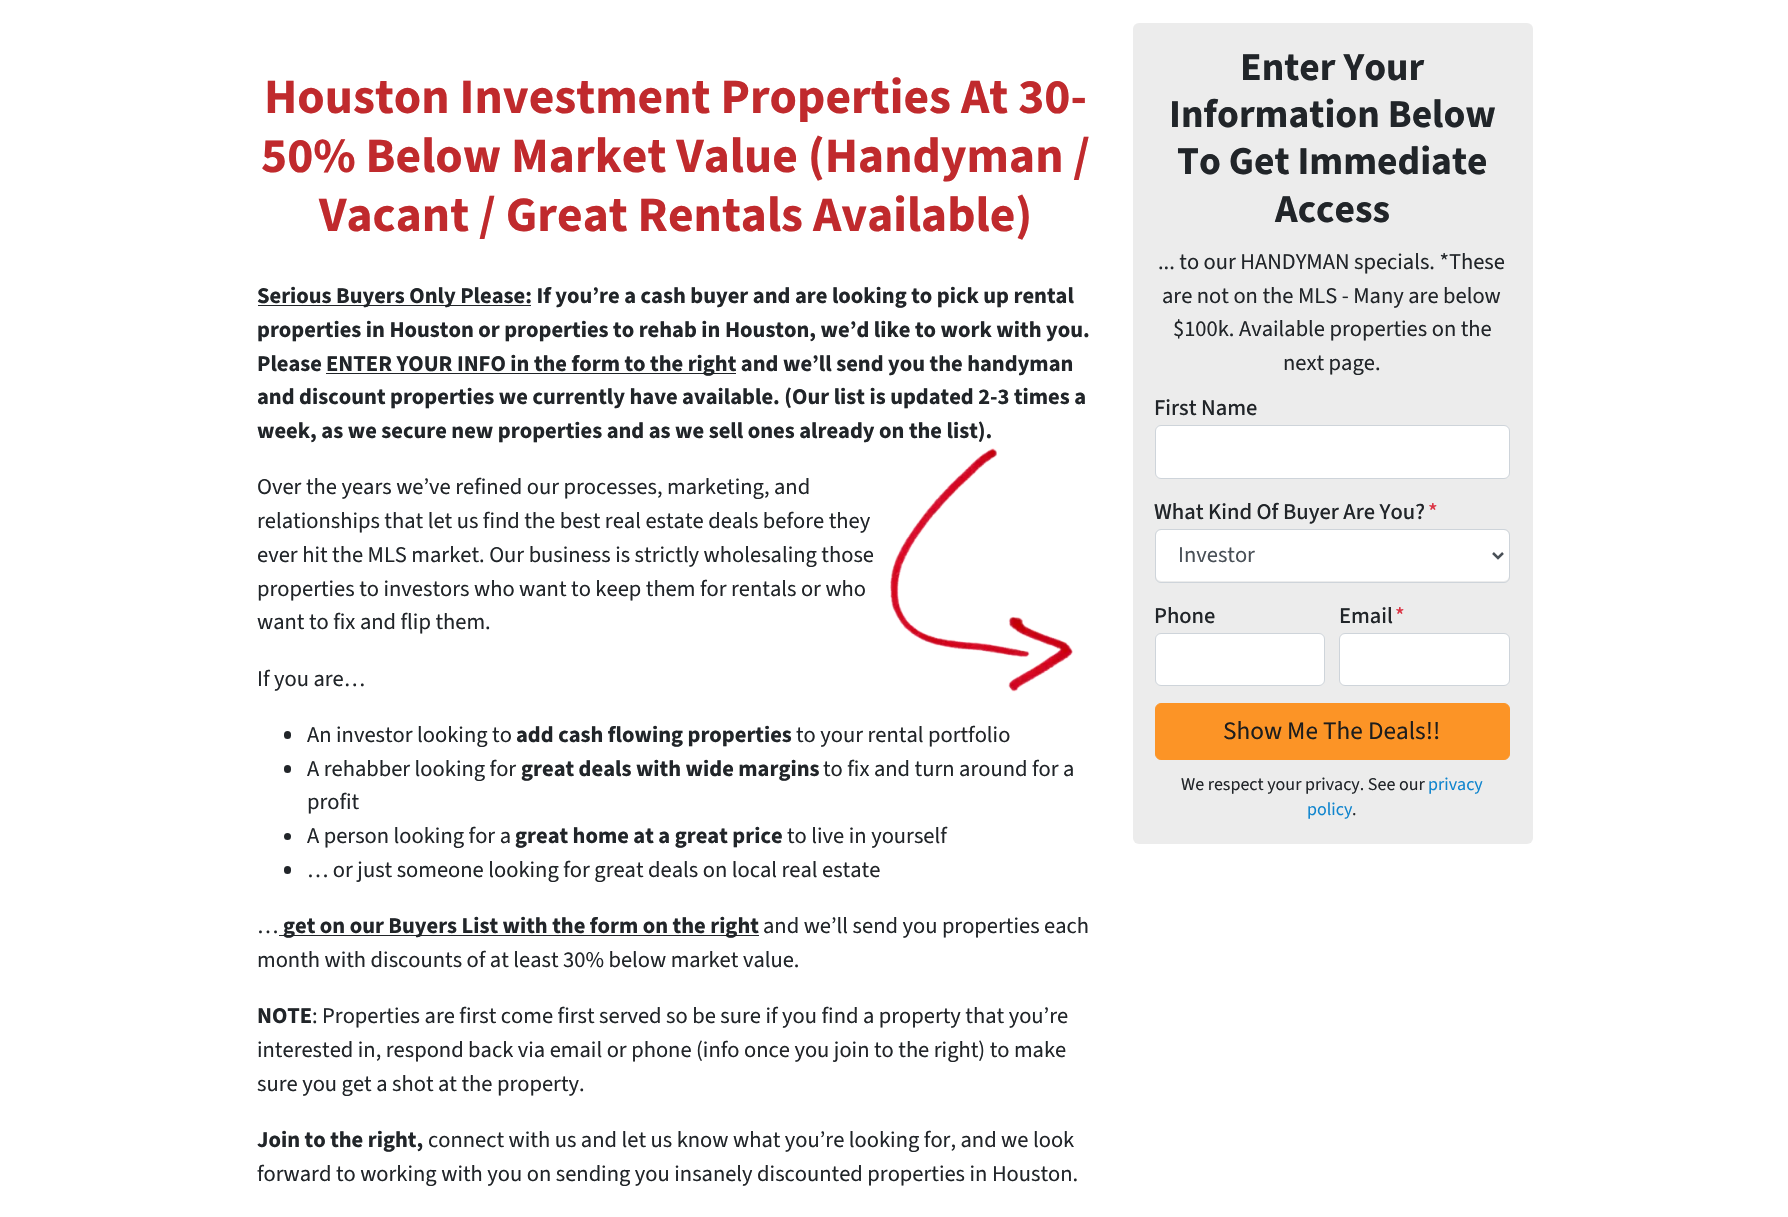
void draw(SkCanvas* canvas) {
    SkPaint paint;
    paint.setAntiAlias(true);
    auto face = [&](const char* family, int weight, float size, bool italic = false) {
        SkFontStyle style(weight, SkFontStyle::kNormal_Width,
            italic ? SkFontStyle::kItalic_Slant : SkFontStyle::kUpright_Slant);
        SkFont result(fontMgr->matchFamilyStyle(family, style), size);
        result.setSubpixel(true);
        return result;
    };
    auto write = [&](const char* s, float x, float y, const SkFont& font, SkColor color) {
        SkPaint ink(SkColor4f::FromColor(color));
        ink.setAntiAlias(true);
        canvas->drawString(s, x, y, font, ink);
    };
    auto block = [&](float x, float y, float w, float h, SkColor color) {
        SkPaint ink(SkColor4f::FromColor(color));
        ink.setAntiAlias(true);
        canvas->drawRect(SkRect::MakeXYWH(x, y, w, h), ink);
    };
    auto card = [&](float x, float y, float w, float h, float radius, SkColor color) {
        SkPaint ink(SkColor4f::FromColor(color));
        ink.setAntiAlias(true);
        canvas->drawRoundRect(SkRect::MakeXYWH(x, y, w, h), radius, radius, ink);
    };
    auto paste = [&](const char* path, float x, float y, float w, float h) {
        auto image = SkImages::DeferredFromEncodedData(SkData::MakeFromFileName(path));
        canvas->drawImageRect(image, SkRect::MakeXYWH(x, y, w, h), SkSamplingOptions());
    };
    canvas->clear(SK_ColorWHITE);
    auto kFont1 = face("Source Sans 3", 700, 49.5f);
    write("Houston Investment Properties At 30-", 264, 113, kFont1, SkColorSetRGB(192, 42, 45));
    write("50% Below Market Value (Handyman /", 261, 172, kFont1, SkColorSetRGB(192, 42, 45));
    write("Vacant / Great Rentals Available)", 319, 231, kFont1, SkColorSetRGB(192, 42, 45));
    block(258, 305, 273, 1, SkColorSetRGB(33, 37, 41));
    auto kFont2 = face("Source Sans 3", 700, 22.5f);
    write("Serious Buyers Only Please: If you’re a cash buyer and are looking to pick up rental", 257, 303, kFont2, SkColorSetRGB(33, 37, 41));
    write("properties in Houston or properties to rehab in Houston, we’d like to work with you.", 257, 337, kFont2, SkColorSetRGB(33, 37, 41));
    write("Please", 257, 371, kFont2, SkColorSetRGB(33, 37, 41));
    block(326, 373, 410, 1, SkColorSetRGB(33, 37, 41));
    write("ENTER YOUR INFO in the form to the right and we’ll send you the handyman", 326, 371, kFont2, SkColorSetRGB(33, 37, 41));
    write("and discount properties we currently have available. (Our list is updated 2-3 times a", 257, 404, kFont2, SkColorSetRGB(33, 37, 41));
    write("week, as we secure new properties and as we sell ones already on the list).", 257, 438, kFont2, SkColorSetRGB(33, 37, 41));
    paste("pic1.png", 890, 448, 183, 244);
    auto kFont3 = face("Source Sans 3", 400, 22.5f);
    write("Over the years we’ve refined our processes, marketing, and", 257, 494, kFont3, SkColorSetRGB(33, 37, 41));
    write("relationships that let us find the best real estate deals before they", 257, 528, kFont3, SkColorSetRGB(33, 37, 41));
    write("ever hit the MLS market. Our business is strictly wholesaling those", 257, 562, kFont3, SkColorSetRGB(33, 37, 41));
    write("properties to investors who want to keep them for rentals or who", 257, 596, kFont3, SkColorSetRGB(33, 37, 41));
    write("want to fix and flip them.", 257, 629, kFont3, SkColorSetRGB(33, 37, 41));
    write("If you are…", 257, 686, kFont3, SkColorSetRGB(33, 37, 41));
    card(284, 731, 7, 8, 3.5f, SkColorSetRGB(33, 37, 41));
    write("An investor looking to", 307, 742, kFont3, SkColorSetRGB(33, 37, 41));
    write("add cash flowing properties", 516, 742, kFont2, SkColorSetRGB(33, 37, 41));
    write("to your rental portfolio", 796, 742, kFont3, SkColorSetRGB(33, 37, 41));
    card(284, 765, 7, 8, 3.5f, SkColorSetRGB(33, 37, 41));
    write("A rehabber looking for", 307, 776, kFont3, SkColorSetRGB(33, 37, 41));
    write("great deals with wide margins", 521, 776, kFont2, SkColorSetRGB(33, 37, 41));
    write("to fix and turn around for a", 823, 776, kFont3, SkColorSetRGB(33, 37, 41));
    write("profit", 307, 809, kFont3, SkColorSetRGB(33, 37, 41));
    paint.setColor(SkColorSetRGB(33, 37, 41));
    canvas->drawCircle(287.5f, 836.5f, 3.5f, paint);
    write("A person looking for a", 307, 843, kFont3, SkColorSetRGB(33, 37, 41));
    write("great home at a great price", 515, 843, kFont2, SkColorSetRGB(33, 37, 41));
    write("to live in yourself", 787, 843, kFont3, SkColorSetRGB(33, 37, 41));
    card(284, 866, 7, 8, 3.5f, SkColorSetRGB(33, 37, 41));
    write("… or just someone looking for great deals on local real estate", 307, 877, kFont3, SkColorSetRGB(33, 37, 41));
    write("…", 257, 933, kFont3, SkColorSetRGB(33, 37, 41));
    block(279, 935, 480, 1, SkColorSetRGB(33, 37, 41));
    write("get on our Buyers List with the form on the right", 283, 933, kFont2, SkColorSetRGB(33, 37, 41));
    write("and we’ll send you properties each", 763, 933, kFont3, SkColorSetRGB(33, 37, 41));
    write("month with discounts of at least 30% below market value.", 257, 967, kFont3, SkColorSetRGB(33, 37, 41));
    write("NOTE", 257, 1023, kFont2, SkColorSetRGB(33, 37, 41));
    write(": Properties are first come first served so be sure if you find a property that you’re", 312, 1023, kFont3, SkColorSetRGB(33, 37, 41));
    write("interested in, respond back via email or phone (info once you join to the right) to make", 257, 1057, kFont3, SkColorSetRGB(33, 37, 41));
    write("sure you get a shot at the property.", 257, 1091, kFont3, SkColorSetRGB(33, 37, 41));
    write("Join to the right,", 257, 1147, kFont2, SkColorSetRGB(33, 37, 41));
    write("connect with us and let us know what you’re looking for, and we look", 428, 1147, kFont3, SkColorSetRGB(33, 37, 41));
    write("forward to working with you on sending you insanely discounted properties in Houston.", 257, 1181, kFont3, SkColorSetRGB(33, 37, 41));
    card(1133, 23, 400, 821, 6, SkColorSetRGB(236, 236, 236));
    auto kFont4 = face("Source Sans 3", 700, 39.5f);
    write("Enter Your", 1240, 80, kFont4, SkColorSetRGB(33, 37, 41));
    write("Information Below", 1169, 127, kFont4, SkColorSetRGB(33, 37, 41));
    write("To Get Immediate", 1177, 174, kFont4, SkColorSetRGB(33, 37, 41));
    write("Access", 1275, 222, kFont4, SkColorSetRGB(33, 37, 41));
    write("... to our HANDYMAN specials. *These", 1158, 269, kFont3, SkColorSetRGB(33, 37, 41));
    write("are not on the MLS - Many are below", 1162, 303, kFont3, SkColorSetRGB(33, 37, 41));
    write("$100k. Available properties on the", 1173, 336, kFont3, SkColorSetRGB(33, 37, 41));
    write("next page.", 1283, 370, kFont3, SkColorSetRGB(33, 37, 41));
    auto kFont5 = face("Source Sans 3", 500, 22.5f);
    write("First Name", 1154, 415, kFont5, SkColorSetRGB(33, 37, 41));
    paint.setColor(SK_ColorWHITE);
    canvas->drawRoundRect(SkRect::MakeXYWH(1155.5f, 425.5f, 354, 53), 5.5f, 5.5f, paint);
    paint.setStyle(SkPaint::kStroke_Style);
    paint.setStrokeWidth(1);
    paint.setColor(SkColorSetRGB(206, 212, 218));
    canvas->drawRoundRect(SkRect::MakeXYWH(1155.5f, 425.5f, 354, 53), 5.5f, 5.5f, paint);
    write("What Kind Of Buyer Are You?", 1154, 519, kFont5, SkColorSetRGB(33, 37, 41));
    write("*", 1428, 519, kFont5, SkColorSetRGB(220, 53, 69));
    card(1156, 530, 353, 51, 5, SK_ColorWHITE);
    canvas->drawRoundRect(SkRect::MakeXYWH(1155.5f, 529.5f, 354, 53), 5.5f, 5.5f, paint);
    paint.setStrokeWidth(2.5f);
    paint.setColor(SkColorSetRGB(73, 80, 87));
    canvas->drawPath(SkPathBuilder().moveTo(1493, 553).lineTo(1498, 558).lineTo(1503, 553).detach(), paint);
    write("Investor", 1178, 562, kFont3, SkColorSetRGB(73, 80, 87));
    write("Phone", 1154, 623, kFont5, SkColorSetRGB(33, 37, 41));
    paint.setStyle(SkPaint::kFill_Style);
    paint.setColor(SK_ColorWHITE);
    canvas->drawRoundRect(SkRect::MakeXYWH(1155.5f, 633.5f, 169, 52), 5.5f, 5.5f, paint);
    paint.setStyle(SkPaint::kStroke_Style);
    paint.setStrokeWidth(1);
    paint.setColor(SkColorSetRGB(206, 212, 218));
    canvas->drawRoundRect(SkRect::MakeXYWH(1155.5f, 633.5f, 169, 52), 5.5f, 5.5f, paint);
    write("Email", 1339, 623, kFont5, SkColorSetRGB(33, 37, 41));
    write("*", 1395, 623, kFont5, SkColorSetRGB(220, 53, 69));
    paint.setStyle(SkPaint::kFill_Style);
    paint.setColor(SK_ColorWHITE);
    canvas->drawRoundRect(SkRect::MakeXYWH(1339.5f, 633.5f, 170, 52), 5.5f, 5.5f, paint);
    paint.setStyle(SkPaint::kStroke_Style);
    paint.setColor(SkColorSetRGB(206, 212, 218));
    canvas->drawRoundRect(SkRect::MakeXYWH(1339.5f, 633.5f, 170, 52), 5.5f, 5.5f, paint);
    paint.setStyle(SkPaint::kFill_Style);
    paint.setColor(SkColorSetRGB(252, 148, 38));
    canvas->drawRoundRect(SkRect::MakeXYWH(1155.5f, 703.5f, 354, 56), 5.5f, 5.5f, paint);
    paint.setStyle(SkPaint::kStroke_Style);
    canvas->drawRoundRect(SkRect::MakeXYWH(1155.5f, 703.5f, 354, 56), 5.5f, 5.5f, paint);
    auto kFont6 = face("Source Sans 3", 400, 25.25f);
    write("Show Me The Deals!!", 1223, 739, kFont6, SkColorSetRGB(29, 29, 29));
    auto kFont7 = face("Source Sans 3", 400, 18);
    write("We respect your privacy. See our", 1181, 790, kFont7, SkColorSetRGB(33, 37, 41));
    write("privacy", 1428, 790, kFont7, SkColorSetRGB(16, 133, 206));
    write("policy", 1307, 815, kFont7, SkColorSetRGB(16, 133, 206));
    write(".", 1352, 815, kFont7, SkColorSetRGB(33, 37, 41));
}
